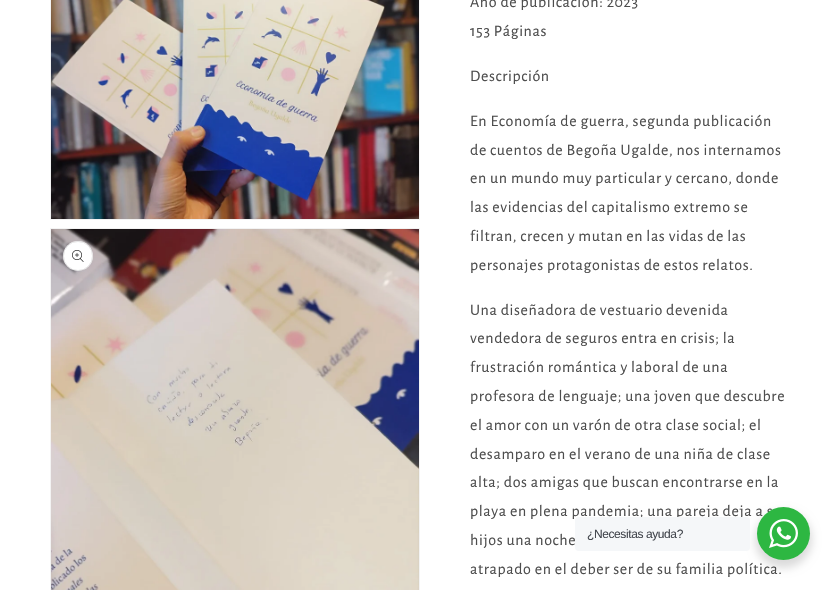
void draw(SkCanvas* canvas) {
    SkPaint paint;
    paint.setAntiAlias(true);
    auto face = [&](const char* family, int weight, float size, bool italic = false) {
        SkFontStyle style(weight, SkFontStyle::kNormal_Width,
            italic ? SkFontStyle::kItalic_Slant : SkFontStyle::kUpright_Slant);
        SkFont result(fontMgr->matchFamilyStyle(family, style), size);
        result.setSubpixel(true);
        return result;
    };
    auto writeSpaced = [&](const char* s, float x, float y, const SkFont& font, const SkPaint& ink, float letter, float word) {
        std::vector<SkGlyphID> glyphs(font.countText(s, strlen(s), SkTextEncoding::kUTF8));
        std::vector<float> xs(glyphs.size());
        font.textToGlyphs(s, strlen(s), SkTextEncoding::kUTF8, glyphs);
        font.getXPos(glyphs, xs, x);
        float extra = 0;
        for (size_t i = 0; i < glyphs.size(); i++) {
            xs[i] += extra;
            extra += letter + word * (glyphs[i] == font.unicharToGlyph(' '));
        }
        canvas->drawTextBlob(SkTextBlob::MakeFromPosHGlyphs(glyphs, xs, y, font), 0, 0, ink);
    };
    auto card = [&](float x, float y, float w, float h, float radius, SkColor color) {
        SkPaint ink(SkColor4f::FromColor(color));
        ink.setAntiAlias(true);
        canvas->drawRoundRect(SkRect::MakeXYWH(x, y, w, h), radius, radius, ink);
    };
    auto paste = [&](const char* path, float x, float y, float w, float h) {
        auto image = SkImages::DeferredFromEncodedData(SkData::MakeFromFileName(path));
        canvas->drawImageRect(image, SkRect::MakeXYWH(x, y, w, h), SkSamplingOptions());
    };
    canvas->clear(SK_ColorWHITE);
    paint.setStyle(SkPaint::kStroke_Style);
    paint.setStrokeWidth(1);
    paint.setColor(SkColorSetRGB(243, 243, 243));
    canvas->drawRect(SkRect::MakeXYWH(50.5f, -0.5f, 369, 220), paint);
    paste("pic1.png", 51, 0, 368, 219);
    canvas->drawRect(SkRect::MakeXYWH(50.5f, 228.5f, 369, 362), paint);
    paste("pic2.png", 51, 229, 368, 361);
    paint.setStyle(SkPaint::kFill_Style);
    paint.setColor(SK_ColorWHITE);
    canvas->drawCircle(78, 256, 15, paint);
    paint.setStyle(SkPaint::kStroke_Style);
    paint.setColor(SkColorSetARGB(26, 18, 18, 18));
    canvas->drawCircle(78, 256, 14.5f, paint);
    paste("pic3.png", 72, 250, 12, 12);
    auto kFont1 = face("Alegreya Sans", 400, 16);
    paint.setStyle(SkPaint::kFill_Style);
    paint.setColor(SkColorSetRGB(77, 77, 77));
    writeSpaced("Año de publicación: 2023", 470, 7, kFont1, paint, 0.6f, 0);
    writeSpaced("153 Páginas", 470, 36, kFont1, paint, 0.6f, 0);
    writeSpaced("Descripción", 470, 81, kFont1, paint, 0.6f, 0);
    writeSpaced("En Economía de guerra, segunda publicación", 470, 126, kFont1, paint, 0.6f, 0);
    writeSpaced("de cuentos de Begoña Ugalde, nos internamos", 470, 155, kFont1, paint, 0.6f, 0);
    writeSpaced("en un mundo muy particular y cercano, donde", 470, 183, kFont1, paint, 0.6f, 0);
    writeSpaced("las evidencias del capitalismo extremo se", 470, 212, kFont1, paint, 0.6f, 0);
    writeSpaced("filtran, crecen y mutan en las vidas de las", 470, 241, kFont1, paint, 0.6f, 0);
    writeSpaced("personajes protagonistas de estos relatos.", 470, 270, kFont1, paint, 0.6f, 0);
    writeSpaced("Una diseñadora de vestuario devenida", 470, 315, kFont1, paint, 0.6f, 0);
    writeSpaced("vendedora de seguros entra en crisis; la", 470, 343, kFont1, paint, 0.6f, 0);
    writeSpaced("frustración romántica y laboral de una", 470, 372, kFont1, paint, 0.6f, 0);
    writeSpaced("profesora de lenguaje; una joven que descubre", 470, 401, kFont1, paint, 0.6f, 0);
    writeSpaced("el amor con un varón de otra clase social; el", 470, 430, kFont1, paint, 0.6f, 0);
    writeSpaced("desamparo en el verano de una niña de clase", 470, 459, kFont1, paint, 0.6f, 0);
    writeSpaced("alta; dos amigas que buscan encontrarse en la", 470, 487, kFont1, paint, 0.6f, 0);
    writeSpaced("playa en plena pandemia; una pareja deja a s", 470, 516, kFont1, paint, 0.6f, 0);
    writeSpaced("hijos una noche", 470, 545, kFont1, paint, 0.6f, 0);
    writeSpaced("atrapado en el deber ser de su familia política.", 470, 574, kFont1, paint, 0.6f, 0);
    paint.setColor(SkColorSetARGB(36, 0, 0, 0));
    paint.setMaskFilter(SkMaskFilter::MakeBlur(kNormal_SkBlurStyle, 4));
    canvas->drawRoundRect(SkRect::MakeXYWH(755, 511, 57, 57), 28.5f, 28.5f, paint);
    paint.setMaskFilter(nullptr);
    card(575, 517, 175, 34, 4, SkColorSetRGB(245, 247, 249));
    auto kFont2 = face("Liberation Sans", 400, 12);
    paint.setColor(SkColorSetRGB(67, 71, 78));
    writeSpaced("¿Necesitas ayuda?", 587, 538, kFont2, paint, -0.4f, 0);
    paint.setColor(SkColorSetRGB(45, 183, 66));
    canvas->drawCircle(783.5f, 533.5f, 26.5f, paint);
    paste("pic4.png", 769, 519, 29, 29);
}
